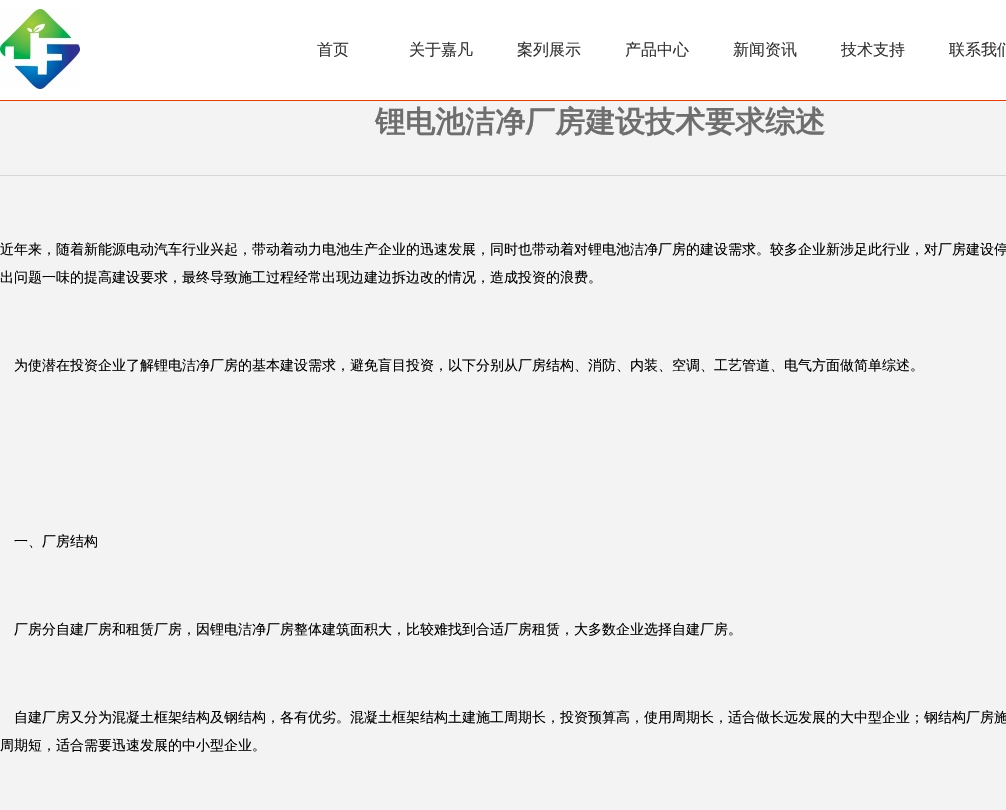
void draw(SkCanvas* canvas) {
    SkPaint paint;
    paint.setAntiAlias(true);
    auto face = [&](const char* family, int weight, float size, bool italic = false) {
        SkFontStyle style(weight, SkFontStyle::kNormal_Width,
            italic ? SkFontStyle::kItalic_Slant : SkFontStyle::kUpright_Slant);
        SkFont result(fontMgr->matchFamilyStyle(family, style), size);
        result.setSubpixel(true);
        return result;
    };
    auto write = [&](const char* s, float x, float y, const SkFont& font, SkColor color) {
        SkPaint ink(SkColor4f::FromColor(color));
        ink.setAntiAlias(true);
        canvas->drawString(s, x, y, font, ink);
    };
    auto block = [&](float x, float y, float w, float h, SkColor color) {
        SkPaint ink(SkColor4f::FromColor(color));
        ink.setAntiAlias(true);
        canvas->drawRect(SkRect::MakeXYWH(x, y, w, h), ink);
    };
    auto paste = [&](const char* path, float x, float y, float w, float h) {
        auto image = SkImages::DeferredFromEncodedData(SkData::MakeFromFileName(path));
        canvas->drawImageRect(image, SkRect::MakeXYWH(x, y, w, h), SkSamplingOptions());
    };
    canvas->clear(SK_ColorWHITE);
    block(0, 100, 1006, 1, SkColorSetRGB(235, 60, 0));
    paste("pic1.png", 0, 9, 80, 80);
    auto kFont1 = face("WenQuanYi Zen Hei", 500, 16);
    write("首页", 317, 55, kFont1, SkColorSetRGB(51, 51, 51));
    write("关于嘉凡", 409, 55, kFont1, SkColorSetRGB(51, 51, 51));
    write("案列展示", 517, 55, kFont1, SkColorSetRGB(51, 51, 51));
    write("产品中心", 625, 55, kFont1, SkColorSetRGB(51, 51, 51));
    write("新闻资讯", 733, 55, kFont1, SkColorSetRGB(51, 51, 51));
    write("技术支持", 841, 55, kFont1, SkColorSetRGB(51, 51, 51));
    write("联系我们", 949, 55, kFont1, SkColorSetRGB(51, 51, 51));
    block(0, 101, 1006, 709, SkColorSetRGB(243, 243, 243));
    auto kFont2 = face("WenQuanYi Zen Hei", 700, 30);
    write("锂电池洁净厂房建设技术要求综述", 375, 132, kFont2, SkColorSetRGB(111, 110, 110));
    block(0, 175, 1006, 1, SkColorSetRGB(215, 215, 215));
    auto kFont3 = face("WenQuanYi Zen Hei", 500, 14);
    write("近年来，随着新能源电动汽车行业兴起，带动着动力电池生产企业的迅速发展，同时也带动着对锂电池洁净厂房的建设需求。较多企业新涉足此行业，对厂房建设停", 0, 254, kFont3, SK_ColorBLACK);
    write("出问题一味的提高建设要求，最终导致施工过程经常出现边建边拆边改的情况，造成投资的浪费。", 0, 282, kFont3, SK_ColorBLACK);
    write("为使潜在投资企业了解锂电洁净厂房的基本建设需求，避免盲目投资，以下分别从厂房结构、消防、内装、空调、工艺管道、电气方面做简单综述。", 14, 370, kFont3, SK_ColorBLACK);
    write("一、厂房结构", 14, 546, kFont3, SK_ColorBLACK);
    write("厂房分自建厂房和租赁厂房，因锂电洁净厂房整体建筑面积大，比较难找到合适厂房租赁，大多数企业选择自建厂房。", 14, 634, kFont3, SK_ColorBLACK);
    write("自建厂房又分为混凝土框架结构及钢结构，各有优劣。混凝土框架结构土建施工周期长，投资预算高，使用周期长，适合做长远发展的大中型企业；钢结构厂房施", 14, 722, kFont3, SK_ColorBLACK);
    write("周期短，适合需要迅速发展的中小型企业。", 0, 750, kFont3, SK_ColorBLACK);
}
